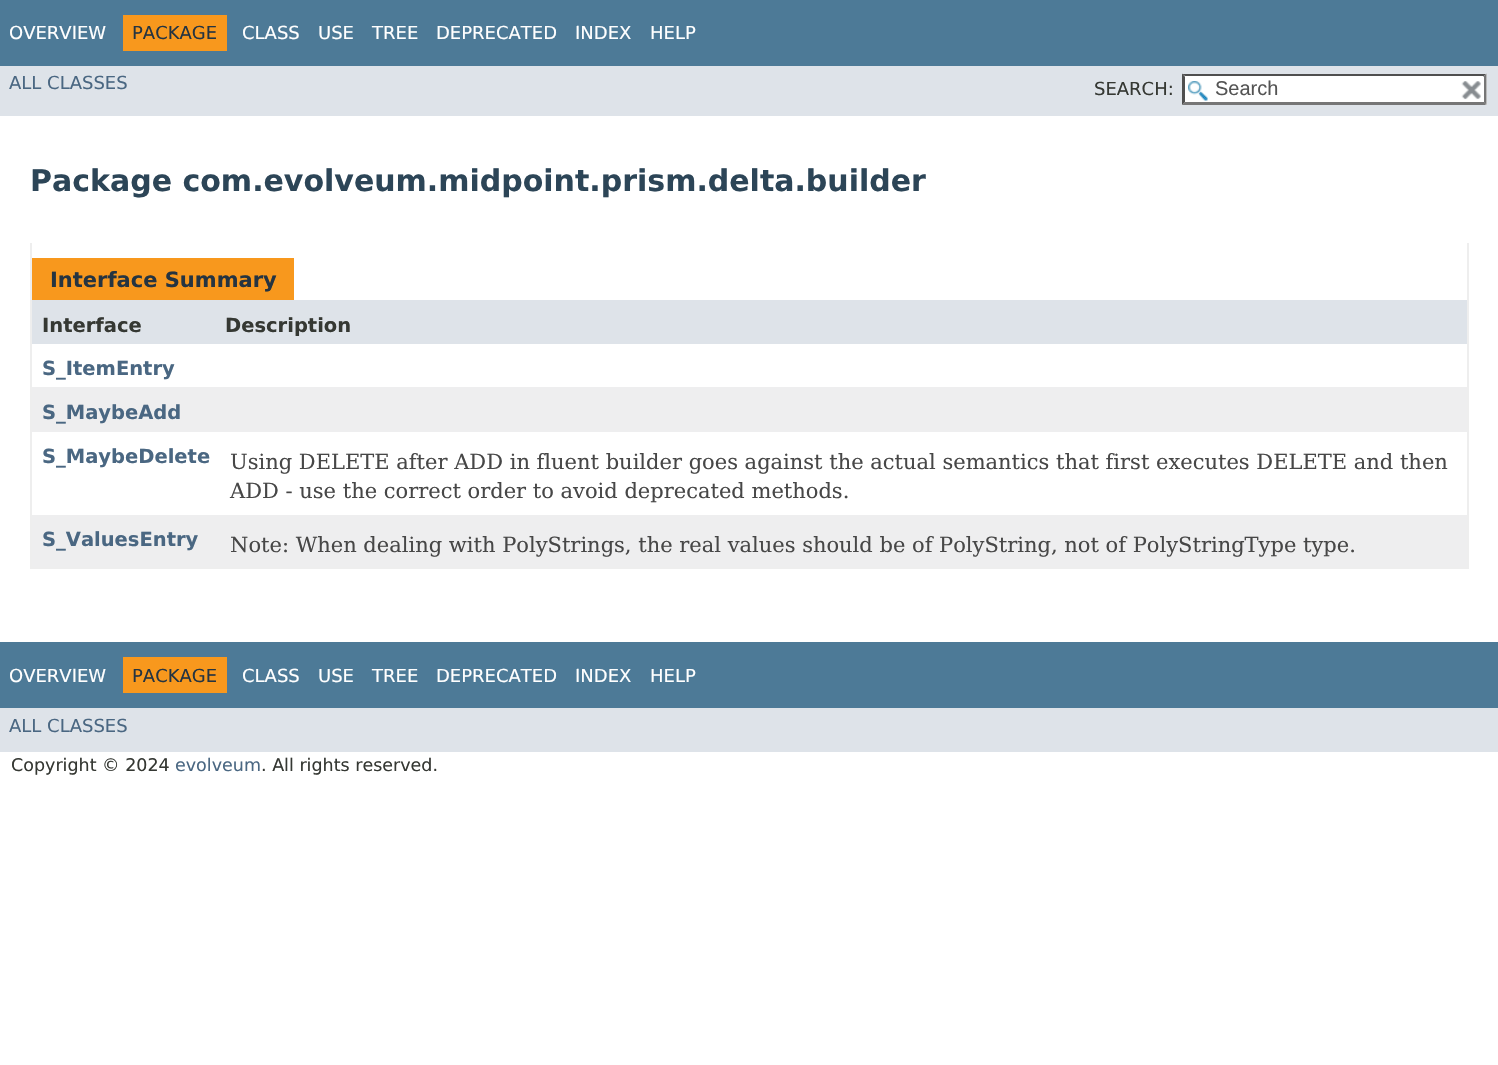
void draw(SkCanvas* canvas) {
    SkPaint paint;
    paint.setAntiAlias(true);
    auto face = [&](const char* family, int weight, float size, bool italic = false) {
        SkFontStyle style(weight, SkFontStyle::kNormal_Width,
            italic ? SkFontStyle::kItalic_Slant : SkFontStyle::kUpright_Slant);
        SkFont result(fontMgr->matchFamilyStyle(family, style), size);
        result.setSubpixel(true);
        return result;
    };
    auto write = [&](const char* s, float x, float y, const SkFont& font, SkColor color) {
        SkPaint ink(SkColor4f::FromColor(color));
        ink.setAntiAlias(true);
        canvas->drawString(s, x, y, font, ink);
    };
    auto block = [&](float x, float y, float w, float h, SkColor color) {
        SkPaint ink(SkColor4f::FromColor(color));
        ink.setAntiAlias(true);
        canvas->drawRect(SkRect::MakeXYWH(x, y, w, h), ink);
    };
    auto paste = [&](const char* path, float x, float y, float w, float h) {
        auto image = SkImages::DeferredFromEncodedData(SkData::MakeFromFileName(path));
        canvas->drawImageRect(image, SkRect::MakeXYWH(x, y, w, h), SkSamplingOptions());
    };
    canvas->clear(SK_ColorWHITE);
    block(0, 0, 1498, 66, SkColorSetRGB(77, 122, 151));
    auto kFont1 = face("DejaVu Sans", 400, 18);
    write("OVERVIEW", 9, 39, kFont1, SK_ColorWHITE);
    block(123, 15, 104, 36, SkColorSetRGB(248, 152, 29));
    write("PACKAGE", 132, 39, kFont1, SkColorSetRGB(37, 52, 65));
    write("CLASS", 242, 39, kFont1, SK_ColorWHITE);
    write("USE", 318, 39, kFont1, SK_ColorWHITE);
    write("TREE", 372, 39, kFont1, SK_ColorWHITE);
    write("DEPRECATED", 436, 39, kFont1, SK_ColorWHITE);
    write("INDEX", 575, 39, kFont1, SK_ColorWHITE);
    write("HELP", 650, 39, kFont1, SK_ColorWHITE);
    block(0, 66, 1498, 50, SkColorSetRGB(222, 227, 233));
    write("ALL CLASSES", 9, 89, kFont1, SkColorSetRGB(74, 103, 130));
    write("SEARCH:", 1094, 95, kFont1, SkColorSetRGB(53, 56, 51));
    block(1182, 74, 305, 31, SK_ColorWHITE);
    paste("pic1.png", 1188, 81, 20, 20);
    paint.setColor(SkColorSetRGB(79, 79, 79));
    canvas->drawPath(SkPathBuilder().moveTo(1182, 74).lineTo(1486, 74).lineTo(1484, 76).lineTo(1185, 76).close().detach(), paint);
    paint.setColor(SkColorSetRGB(118, 118, 118));
    canvas->drawPath(SkPathBuilder().moveTo(1486.5f, 73.5f).lineTo(1486.5f, 105).lineTo(1483.5f, 102).lineTo(1483.5f, 76.5f).close().detach(), paint);
    canvas->drawPath(SkPathBuilder().moveTo(1486, 105).lineTo(1182, 105).lineTo(1185, 102).lineTo(1484, 102).close().detach(), paint);
    paint.setColor(SkColorSetRGB(79, 79, 79));
    canvas->drawPath(SkPathBuilder().moveTo(1182, 105).lineTo(1182, 73.5f).lineTo(1185, 76.5f).lineTo(1185, 102).close().detach(), paint);
    auto kFont2 = face("Liberation Sans", 400, 20);
    write("Search", 1215, 95, kFont2, SkColorSetRGB(84, 84, 84));
    block(1483, 77, 1, 25, SK_ColorWHITE);
    paste("pic2.png", 1461, 81, 20, 19);
    auto kFont3 = face("DejaVu Sans", 700, 30);
    write("Package com.evolveum.midpoint.prism.delta.builder", 30, 191, kFont3, SkColorSetRGB(44, 69, 87));
    block(1467, 243, 2, 326, SkColorSetRGB(238, 238, 238));
    block(30, 567, 1439, 2, SkColorSetRGB(238, 238, 238));
    block(30, 243, 2, 326, SkColorSetRGB(238, 238, 238));
    block(32, 258, 262, 42, SkColorSetRGB(248, 152, 29));
    auto kFont4 = face("DejaVu Sans", 700, 21);
    write("Interface Summary", 50, 287, kFont4, SkColorSetRGB(37, 52, 65));
    block(32, 300, 1435, 44, SkColorSetRGB(222, 227, 233));
    auto kFont5 = face("DejaVu Sans", 700, 19.5f);
    write("Interface", 42, 332, kFont5, SkColorSetRGB(53, 56, 51));
    write("Description", 225, 332, kFont5, SkColorSetRGB(53, 56, 51));
    write("S_ItemEntry", 42, 375, kFont5, SkColorSetRGB(74, 103, 130));
    block(32, 387, 1435, 45, SkColorSetRGB(238, 238, 239));
    write("S_MaybeAdd", 42, 419, kFont5, SkColorSetRGB(74, 103, 130));
    write("S_MaybeDelete", 42, 463, kFont5, SkColorSetRGB(74, 103, 130));
    auto kFont6 = face("DejaVu Serif", 400, 21);
    write("Using DELETE after ADD in fluent builder goes against the actual semantics that first executes DELETE and then", 230, 469, kFont6, SkColorSetRGB(71, 71, 71));
    write("ADD - use the correct order to avoid deprecated methods.", 230, 498, kFont6, SkColorSetRGB(71, 71, 71));
    block(32, 515, 1435, 52, SkColorSetRGB(238, 238, 239));
    write("S_ValuesEntry", 42, 546, kFont5, SkColorSetRGB(74, 103, 130));
    write("Note: When dealing with PolyStrings, the real values should be of PolyString, not of PolyStringType type.", 230, 552, kFont6, SkColorSetRGB(71, 71, 71));
    block(0, 642, 1498, 66, SkColorSetRGB(77, 122, 151));
    write("OVERVIEW", 9, 682, kFont1, SK_ColorWHITE);
    block(123, 657, 104, 36, SkColorSetRGB(248, 152, 29));
    write("PACKAGE", 132, 682, kFont1, SkColorSetRGB(37, 52, 65));
    write("CLASS", 242, 682, kFont1, SK_ColorWHITE);
    write("USE", 318, 682, kFont1, SK_ColorWHITE);
    write("TREE", 372, 682, kFont1, SK_ColorWHITE);
    write("DEPRECATED", 436, 682, kFont1, SK_ColorWHITE);
    write("INDEX", 575, 682, kFont1, SK_ColorWHITE);
    write("HELP", 650, 682, kFont1, SK_ColorWHITE);
    block(0, 708, 1498, 44, SkColorSetRGB(222, 227, 233));
    write("ALL CLASSES", 9, 732, kFont1, SkColorSetRGB(74, 103, 130));
    auto kFont7 = face("DejaVu Sans", 400, 17.5f);
    write("Copyright © 2024", 11, 771, kFont7, SkColorSetRGB(53, 56, 51));
    write("evolveum", 175, 771, kFont7, SkColorSetRGB(74, 103, 130));
    write(". All rights reserved.", 261, 771, kFont7, SkColorSetRGB(53, 56, 51));
}
